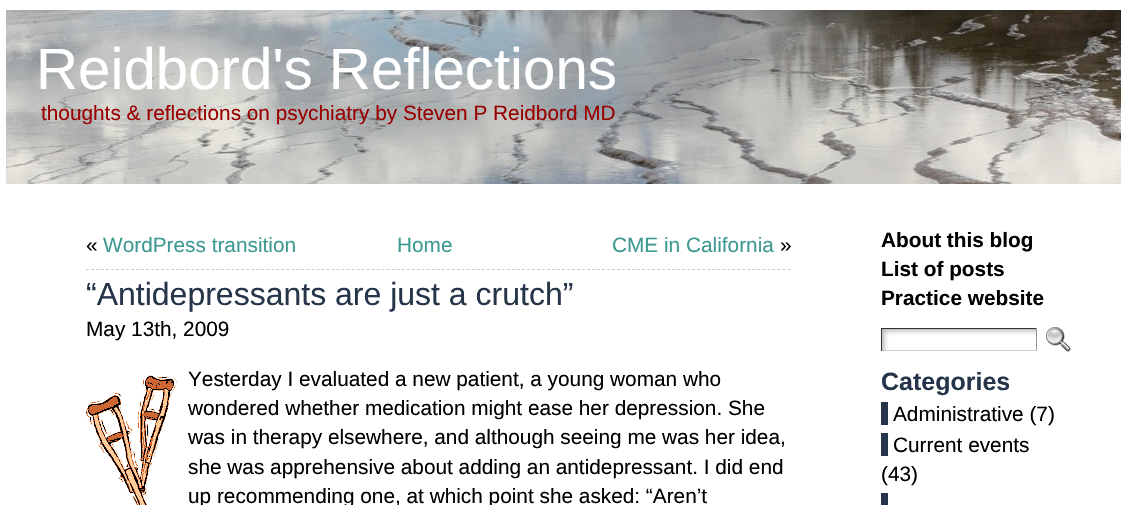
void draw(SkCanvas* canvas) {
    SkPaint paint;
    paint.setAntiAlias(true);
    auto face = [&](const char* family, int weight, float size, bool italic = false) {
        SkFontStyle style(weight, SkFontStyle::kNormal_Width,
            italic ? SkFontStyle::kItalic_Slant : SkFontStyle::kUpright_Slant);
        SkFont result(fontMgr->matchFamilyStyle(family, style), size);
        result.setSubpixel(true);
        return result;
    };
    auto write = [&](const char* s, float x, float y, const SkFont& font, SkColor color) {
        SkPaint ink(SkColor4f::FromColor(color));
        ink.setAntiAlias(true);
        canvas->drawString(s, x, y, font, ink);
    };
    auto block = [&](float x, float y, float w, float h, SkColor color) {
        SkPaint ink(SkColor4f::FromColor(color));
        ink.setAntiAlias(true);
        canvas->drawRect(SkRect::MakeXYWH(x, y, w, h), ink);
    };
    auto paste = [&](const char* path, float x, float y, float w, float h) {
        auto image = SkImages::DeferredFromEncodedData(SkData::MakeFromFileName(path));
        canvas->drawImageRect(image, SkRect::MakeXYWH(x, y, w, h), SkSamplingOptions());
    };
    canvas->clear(SK_ColorWHITE);
    paste("pic1.png", 6, 10, 1115, 174);
    auto kFont1 = face("Liberation Sans", 400, 58.25f);
    write("Reidbord's Reflections", 36, 89, kFont1, SK_ColorWHITE);
    auto kFont2 = face("Liberation Sans", 400, 20.8f);
    write("thoughts & reflections on psychiatry by Steven P Reidbord MD", 41, 120, kFont2, SkColorSetRGB(153, 0, 0));
    paint.setStyle(SkPaint::kStroke_Style);
    paint.setStrokeWidth(1);
    paint.setColor(SkColorSetRGB(204, 204, 204));
    paint.setPathEffect(SkDashPathEffect::Make({{3, 2.01f}}, 0));
    canvas->drawPath(SkPathBuilder().moveTo(86, 269.5f).lineTo(791, 269.5f).detach(), paint);
    paint.setPathEffect(nullptr);
    write("«", 86, 252, kFont2, SK_ColorBLACK);
    write("WordPress transition", 103, 252, kFont2, SkColorSetRGB(61, 153, 145));
    write("Home", 397, 252, kFont2, SkColorSetRGB(61, 153, 145));
    write("CME in California", 612, 252, kFont2, SkColorSetRGB(61, 153, 145));
    write("»", 780, 252, kFont2, SK_ColorBLACK);
    auto kFont3 = face("Liberation Sans", 400, 32);
    write("“Antidepressants are just a crutch”", 86, 305, kFont3, SkColorSetRGB(38, 53, 74));
    write("May 13th, 2009", 86, 336, kFont2, SK_ColorBLACK);
    paste("pic2.png", 86, 375, 91, 130);
    write("Yesterday I evaluated a new patient, a young woman who", 188, 386, kFont2, SK_ColorBLACK);
    write("wondered whether medication might ease her depression. She", 188, 415, kFont2, SK_ColorBLACK);
    write("was in therapy elsewhere, and although seeing me was her idea,", 188, 444, kFont2, SK_ColorBLACK);
    write("she was apprehensive about adding an antidepressant. I did end", 188, 474, kFont2, SK_ColorBLACK);
    write("up recommending one, at which point she asked: “Aren’t", 188, 503, kFont2, SK_ColorBLACK);
    auto kFont4 = face("Liberation Sans", 700, 20.8f);
    write("About this blog", 881, 247, kFont4, SK_ColorBLACK);
    write("List of posts", 881, 276, kFont4, SK_ColorBLACK);
    write("Practice website", 881, 305, kFont4, SK_ColorBLACK);
    paste("pic3.png", 882, 329, 154, 21);
    block(881, 328, 156, 1, SkColorSetRGB(51, 51, 51));
    block(1036, 328, 1, 23, SkColorSetRGB(153, 153, 153));
    block(881, 350, 156, 1, SkColorSetRGB(204, 204, 204));
    block(881, 328, 1, 23, SkColorSetRGB(51, 51, 51));
    paste("pic4.png", 1046, 327, 25, 25);
    auto kFont5 = face("Liberation Sans", 700, 25);
    write("Categories", 881, 390, kFont5, SkColorSetRGB(38, 53, 74));
    write("Administrative (7)", 893, 421, kFont2, SK_ColorBLACK);
    block(881, 402, 7, 23, SkColorSetRGB(38, 53, 74));
    write("Current events", 893, 452, kFont2, SK_ColorBLACK);
    block(881, 433, 7, 23, SkColorSetRGB(38, 53, 74));
    write("(43)", 881, 481, kFont2, SK_ColorBLACK);
    block(881, 493, 7, 12, SkColorSetRGB(38, 53, 74));
}
